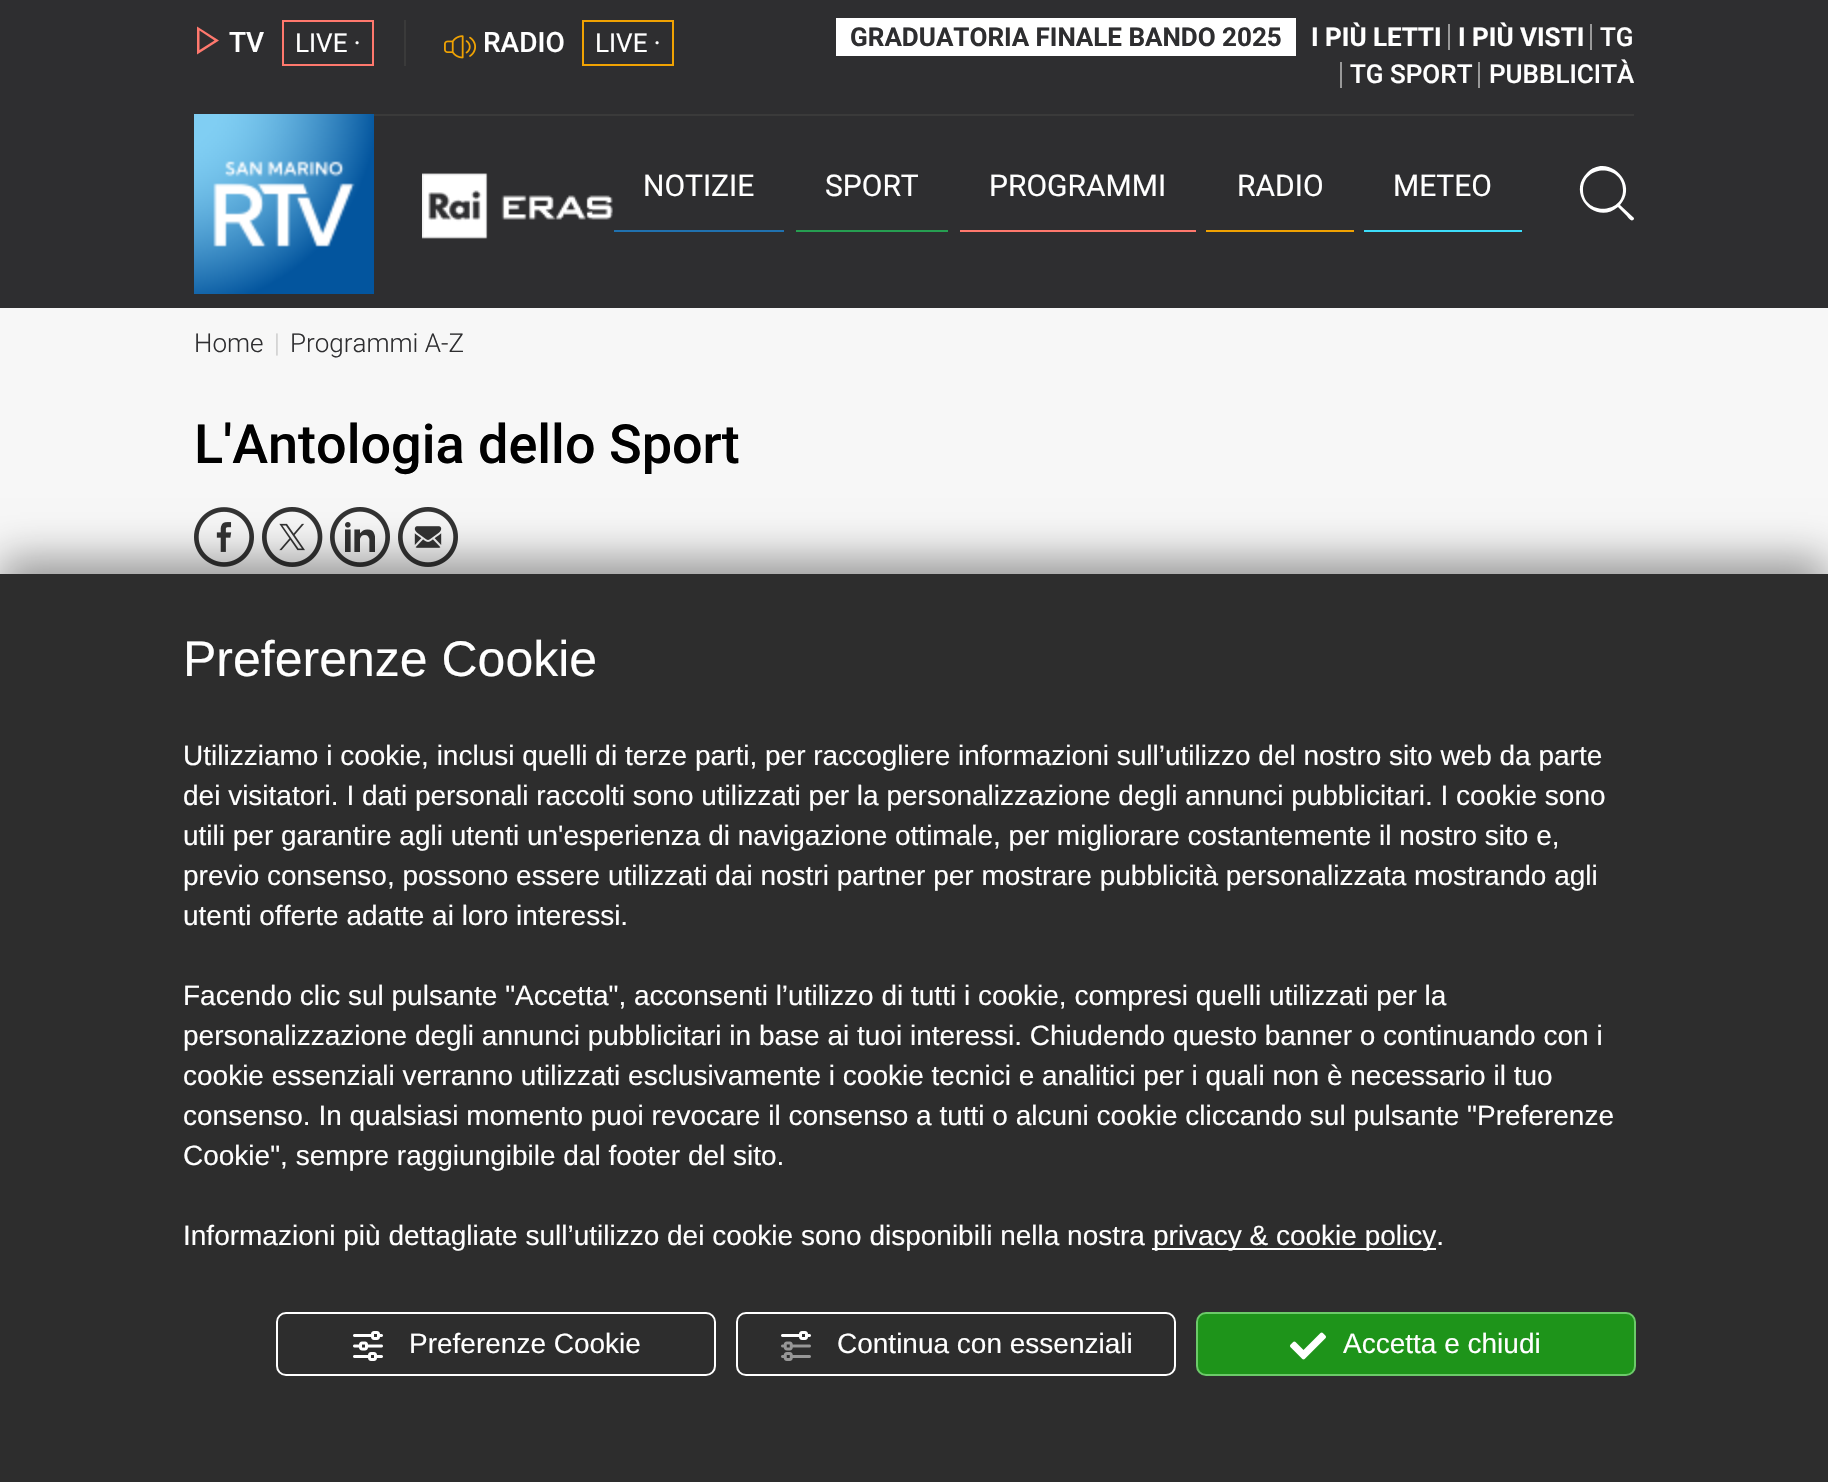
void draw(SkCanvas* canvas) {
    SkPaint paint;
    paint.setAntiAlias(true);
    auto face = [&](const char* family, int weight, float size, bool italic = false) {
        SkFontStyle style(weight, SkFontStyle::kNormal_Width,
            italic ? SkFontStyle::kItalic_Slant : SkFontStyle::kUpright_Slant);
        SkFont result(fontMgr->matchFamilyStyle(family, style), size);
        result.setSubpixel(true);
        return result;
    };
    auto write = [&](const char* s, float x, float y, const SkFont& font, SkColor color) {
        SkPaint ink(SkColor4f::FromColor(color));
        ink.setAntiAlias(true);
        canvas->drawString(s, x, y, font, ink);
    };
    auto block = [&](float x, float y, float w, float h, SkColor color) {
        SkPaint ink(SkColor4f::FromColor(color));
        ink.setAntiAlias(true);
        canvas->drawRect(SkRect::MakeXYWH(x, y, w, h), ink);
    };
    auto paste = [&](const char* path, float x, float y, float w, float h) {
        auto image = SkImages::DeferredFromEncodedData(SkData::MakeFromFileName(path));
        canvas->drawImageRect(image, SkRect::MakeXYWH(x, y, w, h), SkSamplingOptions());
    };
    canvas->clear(SkColorSetRGB(247, 247, 247));
    block(0, 0, 1828, 308, SkColorSetRGB(46, 46, 48));
    block(374, 114, 1260, 2, SkColorSetRGB(58, 58, 58));
    block(404, 20, 2, 46, SkColorSetRGB(58, 58, 58));
    paint.setColor(SkColorSetRGB(255, 120, 109));
    canvas->drawPath(SkPathBuilder().moveTo(199.5f, 30.5f).lineTo(214.5f, 40.5f).lineTo(199.5f, 50).close().moveTo(197, 26.5f).lineTo(197, 54.5f).lineTo(219, 40.5f).close().detach(), paint);
    auto kFont1 = face("Roboto", 500, 28);
    write("TV", 229, 52, kFont1, SK_ColorWHITE);
    paint.setStyle(SkPaint::kStroke_Style);
    paint.setStrokeWidth(2);
    canvas->drawRect(SkRect::MakeXYWH(283, 21, 90, 44), paint);
    auto kFont2 = face("Roboto", 400, 26);
    write("LIVE ·", 295, 52, kFont2, SK_ColorWHITE);
    paste("pic1.png", 444, 35, 32, 24);
    write("RADIO", 483, 52, kFont1, SK_ColorWHITE);
    paint.setColor(SkColorSetRGB(240, 162, 2));
    canvas->drawRect(SkRect::MakeXYWH(583, 21, 90, 44), paint);
    write("LIVE ·", 595, 52, kFont2, SK_ColorWHITE);
    block(836, 18, 460, 38, SK_ColorWHITE);
    auto kFont3 = face("Roboto", 700, 26);
    write("GRADUATORIA FINALE BANDO 2025", 850, 46, kFont3, SkColorSetRGB(46, 46, 48));
    write("I PIÙ LETTI", 1311, 46, kFont3, SK_ColorWHITE);
    block(1448, 24, 2, 26, SkColorSetRGB(153, 153, 153));
    write("I PIÙ VISTI", 1458, 46, kFont3, SK_ColorWHITE);
    block(1590, 24, 2, 26, SkColorSetRGB(153, 153, 153));
    auto kFont4 = face("Roboto", 500, 26);
    write("TG", 1600, 46, kFont4, SK_ColorWHITE);
    block(1340, 62, 2, 26, SkColorSetRGB(153, 153, 153));
    write("TG SPORT", 1350, 83, kFont4, SK_ColorWHITE);
    block(1478, 62, 2, 26, SkColorSetRGB(153, 153, 153));
    write("PUBBLICITÀ", 1489, 83, kFont4, SK_ColorWHITE);
    paste("pic2.png", 194, 114, 180, 180);
    paste("pic3.png", 422, 173, 191, 66);
    block(614, 230, 170, 2, SkColorSetRGB(32, 113, 175));
    auto kFont5 = face("Roboto", 400, 30);
    write("NOTIZIE", 643, 196, kFont5, SK_ColorWHITE);
    block(796, 230, 152, 2, SkColorSetRGB(38, 158, 81));
    write("SPORT", 825, 196, kFont5, SK_ColorWHITE);
    block(960, 230, 236, 2, SkColorSetRGB(255, 120, 109));
    write("PROGRAMMI", 989, 196, kFont5, SK_ColorWHITE);
    block(1206, 230, 148, 2, SkColorSetRGB(240, 162, 2));
    write("RADIO", 1237, 196, kFont5, SK_ColorWHITE);
    block(1364, 230, 158, 2, SkColorSetRGB(61, 221, 250));
    write("METEO", 1393, 196, kFont5, SK_ColorWHITE);
    paint.setStyle(SkPaint::kFill_Style);
    paint.setColor(SK_ColorWHITE);
    canvas->drawPath(SkPathBuilder().moveTo(1634, 218).lineTo(1620, 205).cubicTo(1640, 183, 1607, 152, 1587, 173).cubicTo(1566, 194, 1596, 226, 1618, 207).lineTo(1627, 216).cubicTo(1627, 216, 1631, 222, 1633, 220).cubicTo(1634, 220, 1634, 218, 1634, 218).close().moveTo(1583, 190).cubicTo(1583, 164, 1623, 164, 1623, 190).cubicTo(1623, 215, 1583, 215, 1583, 190).close().detach(), paint);
    auto kFont6 = face("Roboto", 300, 26);
    write("Home", 194, 352, kFont6, SkColorSetRGB(46, 46, 48));
    write("|", 274, 352, kFont6, SkColorSetRGB(204, 204, 204));
    write("Programmi A-Z", 290, 352, kFont6, SkColorSetRGB(46, 46, 48));
    auto kFont7 = face("Roboto", 500, 54);
    write("L'Antologia dello Sport", 194, 463, kFont7, SK_ColorBLACK);
    paste("pic4.png", 194, 507, 60, 60);
    paste("pic5.png", 262, 507, 61, 60);
    paste("pic6.png", 330, 507, 60, 60);
    paste("pic7.png", 398, 507, 60, 60);
    paint.setColor(SkColorSetARGB(97, 0, 0, 0));
    paint.setMaskFilter(SkMaskFilter::MakeBlur(kNormal_SkBlurStyle, 20));
    canvas->drawRect(SkRect::MakeXYWH(0, 558, 1828, 908), paint);
    paint.setMaskFilter(nullptr);
    block(0, 574, 1828, 908, SkColorSetRGB(45, 45, 45));
    auto kFont8 = face("Liberation Sans", 400, 50);
    write("Preferenze Cookie", 183, 676, kFont8, SK_ColorWHITE);
    auto kFont9 = face("Liberation Sans", 400, 28);
    write("Utilizziamo i cookie, inclusi quelli di terze parti, per raccogliere informazioni sull’utilizzo del nostro sito web da parte", 183, 765, kFont9, SK_ColorWHITE);
    write("dei visitatori. I dati personali raccolti sono utilizzati per la personalizzazione degli annunci pubblicitari. I cookie sono", 183, 805, kFont9, SK_ColorWHITE);
    write("utili per garantire agli utenti un'esperienza di navigazione ottimale, per migliorare costantemente il nostro sito e,", 183, 845, kFont9, SK_ColorWHITE);
    write("previo consenso, possono essere utilizzati dai nostri partner per mostrare pubblicità personalizzata mostrando agli", 183, 885, kFont9, SK_ColorWHITE);
    write("utenti offerte adatte ai loro interessi.", 183, 925, kFont9, SK_ColorWHITE);
    write("Facendo clic sul pulsante \"Accetta\", acconsenti l’utilizzo di tutti i cookie, compresi quelli utilizzati per la", 183, 1005, kFont9, SK_ColorWHITE);
    write("personalizzazione degli annunci pubblicitari in base ai tuoi interessi. Chiudendo questo banner o continuando con i", 183, 1045, kFont9, SK_ColorWHITE);
    write("cookie essenziali verranno utilizzati esclusivamente i cookie tecnici e analitici per i quali non è necessario il tuo", 183, 1085, kFont9, SK_ColorWHITE);
    write("consenso. In qualsiasi momento puoi revocare il consenso a tutti o alcuni cookie cliccando sul pulsante \"Preferenze", 183, 1125, kFont9, SK_ColorWHITE);
    write("Cookie\", sempre raggiungibile dal footer del sito.", 183, 1165, kFont9, SK_ColorWHITE);
    write("Informazioni più dettagliate sull’utilizzo dei cookie sono disponibili nella nostra", 183, 1245, kFont9, SK_ColorWHITE);
    block(1152, 1248, 284, 2, SK_ColorWHITE);
    write("privacy & cookie policy.", 1153, 1245, kFont9, SK_ColorWHITE);
    paint.setStyle(SkPaint::kStroke_Style);
    paint.setColor(SK_ColorWHITE);
    canvas->drawRoundRect(SkRect::MakeXYWH(277, 1313, 438, 62), 9, 9, paint);
    paste("pic8.png", 353, 1331, 30, 30);
    write("Preferenze Cookie", 409, 1353, kFont9, SK_ColorWHITE);
    canvas->drawRoundRect(SkRect::MakeXYWH(737, 1313, 438, 62), 9, 9, paint);
    paste("pic9.png", 781, 1331, 30, 30);
    write("Continua con essenziali", 837, 1353, kFont9, SK_ColorWHITE);
    paint.setStyle(SkPaint::kFill_Style);
    paint.setColor(SkColorSetRGB(30, 148, 26));
    canvas->drawRoundRect(SkRect::MakeXYWH(1197, 1313, 438, 62), 9, 9, paint);
    paint.setStyle(SkPaint::kStroke_Style);
    paint.setColor(SkColorSetRGB(108, 202, 105));
    canvas->drawRoundRect(SkRect::MakeXYWH(1197, 1313, 438, 62), 9, 9, paint);
    paste("pic10.png", 1290, 1332, 36, 28);
    write("Accetta e chiudi", 1343, 1353, kFont9, SK_ColorWHITE);
}
